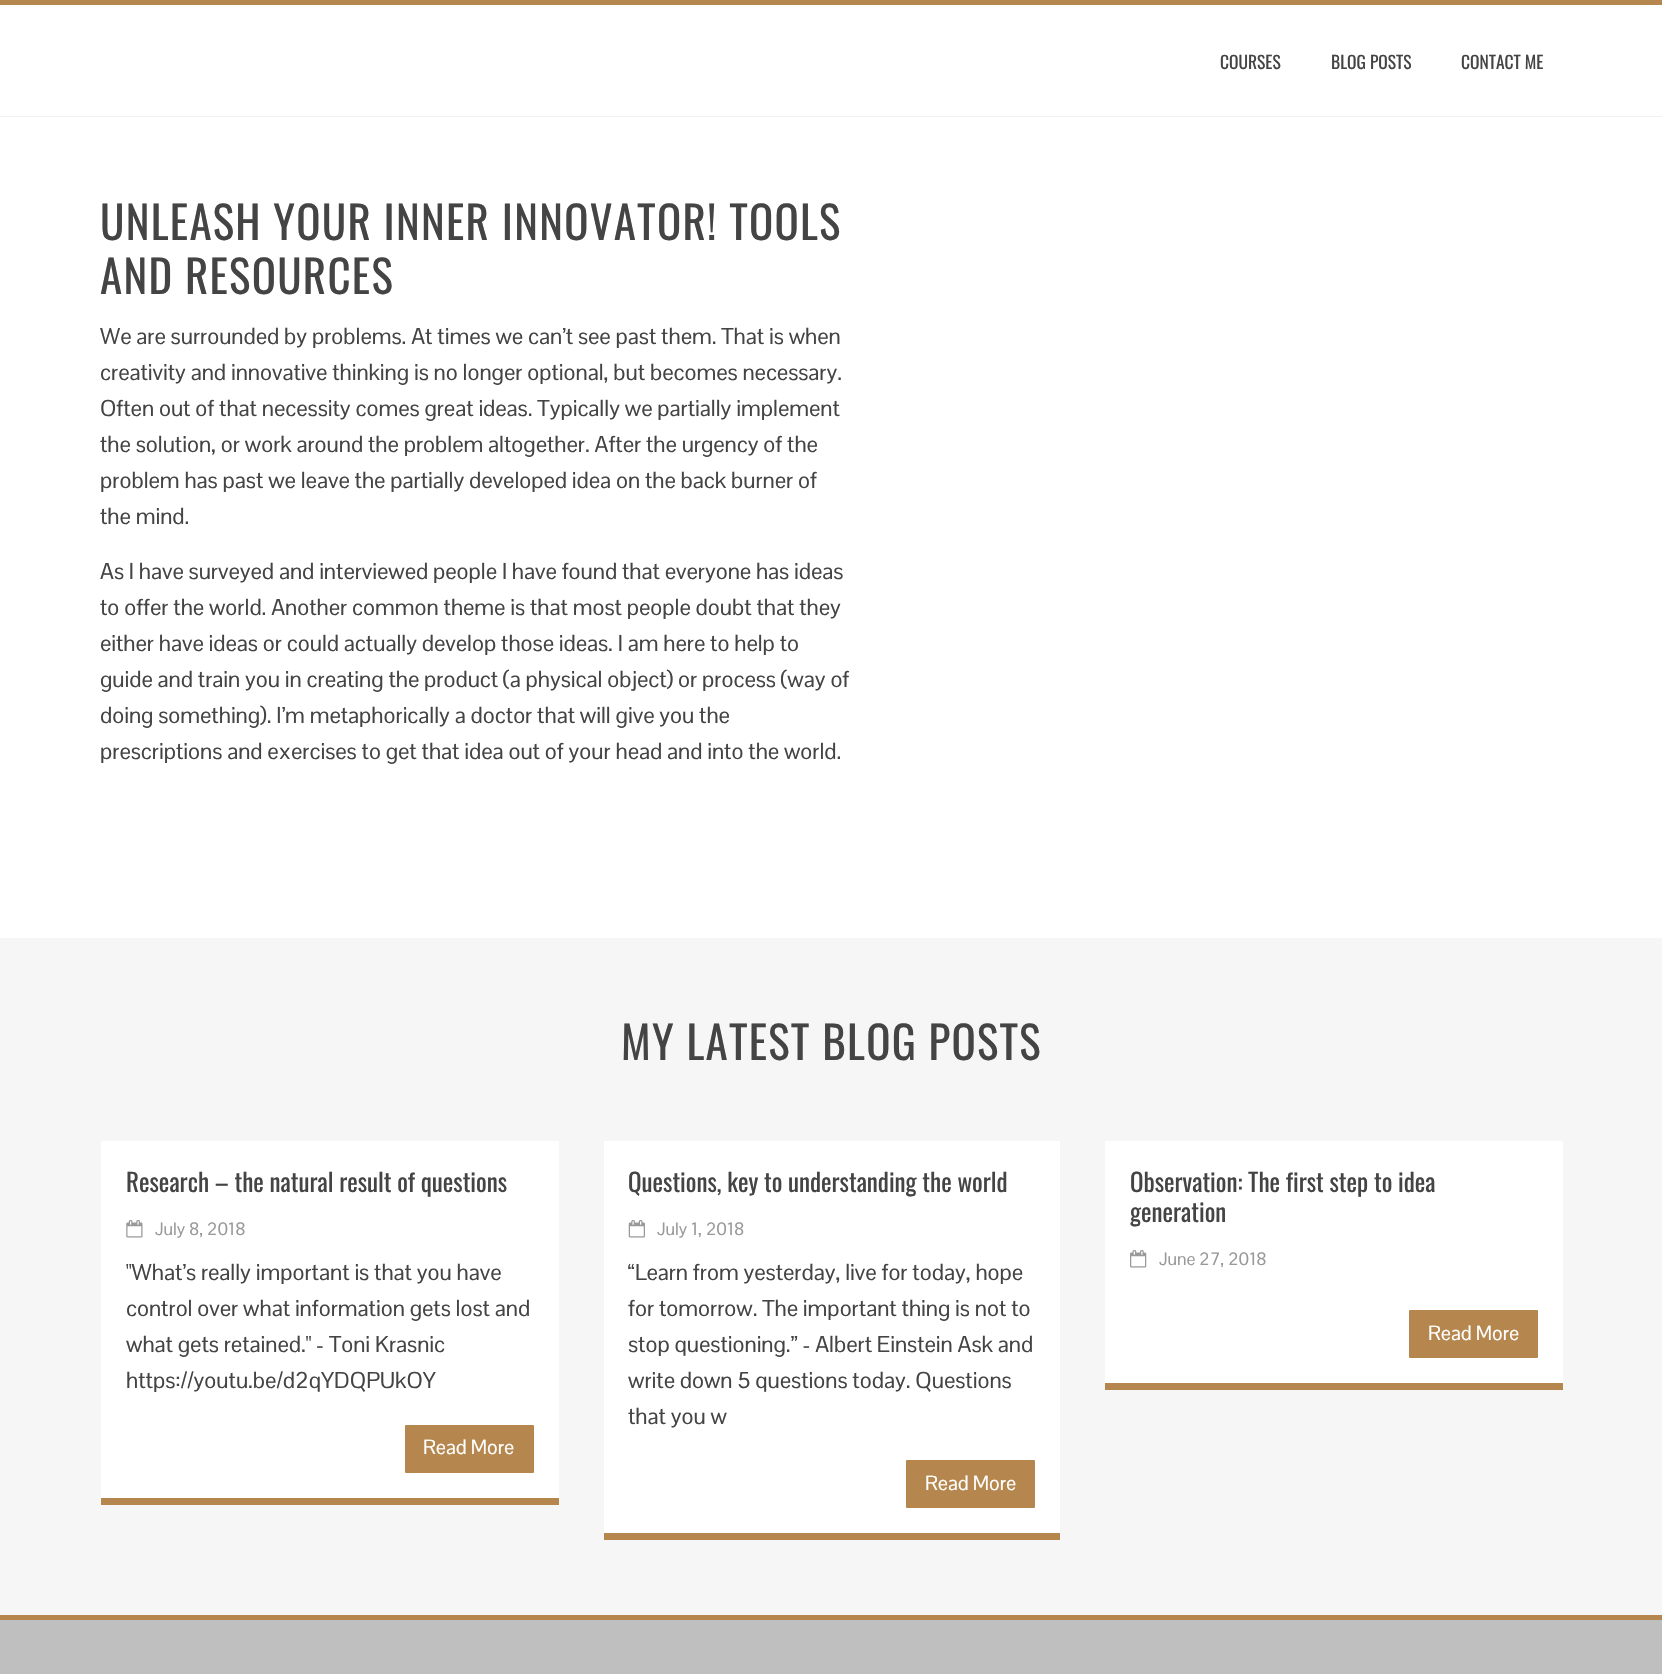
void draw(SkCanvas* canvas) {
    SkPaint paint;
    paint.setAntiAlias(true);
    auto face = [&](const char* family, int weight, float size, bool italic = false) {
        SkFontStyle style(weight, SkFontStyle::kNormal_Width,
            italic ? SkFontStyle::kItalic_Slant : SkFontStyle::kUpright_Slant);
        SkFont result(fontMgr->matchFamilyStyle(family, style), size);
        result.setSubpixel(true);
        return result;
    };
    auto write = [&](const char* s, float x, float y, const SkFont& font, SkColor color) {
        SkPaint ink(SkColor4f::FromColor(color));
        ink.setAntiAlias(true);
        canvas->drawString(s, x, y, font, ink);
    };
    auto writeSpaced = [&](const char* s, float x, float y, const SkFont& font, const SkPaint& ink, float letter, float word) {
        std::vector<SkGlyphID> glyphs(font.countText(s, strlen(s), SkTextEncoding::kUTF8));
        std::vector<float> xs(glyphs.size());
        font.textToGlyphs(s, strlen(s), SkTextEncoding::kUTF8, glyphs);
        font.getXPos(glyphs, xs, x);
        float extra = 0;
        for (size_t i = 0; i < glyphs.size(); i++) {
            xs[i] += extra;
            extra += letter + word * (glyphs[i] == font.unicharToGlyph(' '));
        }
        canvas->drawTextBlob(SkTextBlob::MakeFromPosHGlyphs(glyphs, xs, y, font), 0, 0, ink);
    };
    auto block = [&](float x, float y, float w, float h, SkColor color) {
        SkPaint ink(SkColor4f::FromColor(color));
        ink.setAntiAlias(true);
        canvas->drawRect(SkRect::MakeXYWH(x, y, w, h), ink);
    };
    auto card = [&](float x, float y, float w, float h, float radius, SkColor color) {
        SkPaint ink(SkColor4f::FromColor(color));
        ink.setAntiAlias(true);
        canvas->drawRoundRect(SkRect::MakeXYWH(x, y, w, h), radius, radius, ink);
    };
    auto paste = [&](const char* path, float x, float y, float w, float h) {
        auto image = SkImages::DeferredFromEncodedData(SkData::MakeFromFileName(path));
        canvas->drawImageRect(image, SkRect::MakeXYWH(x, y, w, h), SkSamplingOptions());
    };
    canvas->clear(SkColorSetRGB(191, 191, 191));
    block(0, 0, 1662, 5, SkColorSetRGB(181, 135, 78));
    block(0, 5, 1662, 933, SK_ColorWHITE);
    block(0, 116, 1662, 1, SkColorSetRGB(241, 241, 241));
    auto kFont1 = face("Oswald", 400, 17.5f);
    write("COURSES", 1220, 69, kFont1, SkColorSetRGB(68, 68, 68));
    write("BLOG POSTS", 1331, 69, kFont1, SkColorSetRGB(68, 68, 68));
    write("CONTACT ME", 1461, 69, kFont1, SkColorSetRGB(68, 68, 68));
    auto kFont2 = face("Oswald", 400, 45);
    paint.setColor(SkColorSetRGB(68, 68, 68));
    writeSpaced("UNLEASH YOUR INNER INNOVATOR! TOOLS", 100, 240, kFont2, paint, 1.25f, 0);
    writeSpaced("AND RESOURCES", 100, 294, kFont2, paint, 1.25f, 0);
    auto kFont3 = face("Pontano Sans", 400, 22.5f);
    write("We are surrounded by problems. At times we can’t see past them. That is when", 100, 344, kFont3, SkColorSetRGB(68, 68, 68));
    write("creativity and innovative thinking is no longer optional, but becomes necessary.", 100, 380, kFont3, SkColorSetRGB(68, 68, 68));
    write("Often out of that necessity comes great ideas. Typically we partially implement", 100, 416, kFont3, SkColorSetRGB(68, 68, 68));
    write("the solution, or work around the problem altogether. After the urgency of the", 100, 452, kFont3, SkColorSetRGB(68, 68, 68));
    write("problem has past we leave the partially developed idea on the back burner of", 100, 488, kFont3, SkColorSetRGB(68, 68, 68));
    write("the mind.", 100, 524, kFont3, SkColorSetRGB(68, 68, 68));
    write("As I have surveyed and interviewed people I have found that everyone has ideas", 100, 579, kFont3, SkColorSetRGB(68, 68, 68));
    write("to offer the world. Another common theme is that most people doubt that they", 100, 615, kFont3, SkColorSetRGB(68, 68, 68));
    write("either have ideas or could actually develop those ideas. I am here to help to", 100, 651, kFont3, SkColorSetRGB(68, 68, 68));
    write("guide and train you in creating the product (a physical object) or process (way of", 100, 687, kFont3, SkColorSetRGB(68, 68, 68));
    write("doing something). I’m metaphorically a doctor that will give you the", 100, 723, kFont3, SkColorSetRGB(68, 68, 68));
    write("prescriptions and exercises to get that idea out of your head and into the world.", 100, 759, kFont3, SkColorSetRGB(68, 68, 68));
    block(0, 938, 1662, 677, SkColorSetRGB(246, 246, 246));
    writeSpaced("MY LATEST BLOG POSTS", 621, 1060, kFont2, paint, 1.25f, 0);
    block(101, 1141, 458, 357, SK_ColorWHITE);
    block(101, 1498, 458, 7, SkColorSetRGB(181, 135, 78));
    auto kFont4 = face("Oswald", 400, 25);
    write("Research – the natural result of questions", 126, 1192, kFont4, SkColorSetRGB(68, 68, 68));
    paste("pic1.png", 126, 1220, 17, 18);
    auto kFont5 = face("Pontano Sans", 400, 17.5f);
    write("July 8, 2018", 155, 1235, kFont5, SkColorSetRGB(153, 153, 153));
    write("\"What’s really important is that you have", 126, 1280, kFont3, SkColorSetRGB(68, 68, 68));
    write("control over what information gets lost and", 126, 1316, kFont3, SkColorSetRGB(68, 68, 68));
    write("what gets retained.\" - Toni Krasnic", 126, 1352, kFont3, SkColorSetRGB(68, 68, 68));
    write("https://youtu.be/d2qYDQPUkOY", 126, 1388, kFont3, SkColorSetRGB(68, 68, 68));
    card(405, 1425, 129, 48, 1, SkColorSetRGB(181, 135, 78));
    auto kFont6 = face("Pontano Sans", 400, 20);
    write("Read More", 423, 1454, kFont6, SK_ColorWHITE);
    block(604, 1141, 456, 392, SK_ColorWHITE);
    block(604, 1533, 456, 7, SkColorSetRGB(181, 135, 78));
    write("Questions, key to understanding the world", 628, 1192, kFont4, SkColorSetRGB(68, 68, 68));
    paste("pic2.png", 628, 1220, 17, 18);
    write("July 1, 2018", 657, 1235, kFont5, SkColorSetRGB(153, 153, 153));
    write("“Learn from yesterday, live for today, hope", 628, 1280, kFont3, SkColorSetRGB(68, 68, 68));
    write("for tomorrow. The important thing is not to", 628, 1316, kFont3, SkColorSetRGB(68, 68, 68));
    write("stop questioning.” - Albert Einstein Ask and", 628, 1352, kFont3, SkColorSetRGB(68, 68, 68));
    write("write down 5 questions today. Questions", 628, 1388, kFont3, SkColorSetRGB(68, 68, 68));
    write("that you w", 628, 1424, kFont3, SkColorSetRGB(68, 68, 68));
    card(906, 1460, 129, 48, 1, SkColorSetRGB(181, 135, 78));
    write("Read More", 925, 1490, kFont6, SK_ColorWHITE);
    block(1105, 1141, 458, 242, SK_ColorWHITE);
    block(1105, 1383, 458, 7, SkColorSetRGB(181, 135, 78));
    write("Observation: The first step to idea", 1130, 1192, kFont4, SkColorSetRGB(68, 68, 68));
    write("generation", 1130, 1222, kFont4, SkColorSetRGB(68, 68, 68));
    paste("pic3.png", 1130, 1250, 17, 18);
    write("June 27, 2018", 1159, 1265, kFont5, SkColorSetRGB(153, 153, 153));
    card(1409, 1310, 129, 48, 1, SkColorSetRGB(181, 135, 78));
    write("Read More", 1428, 1340, kFont6, SK_ColorWHITE);
    block(0, 1615, 1662, 5, SkColorSetRGB(181, 135, 78));
}
